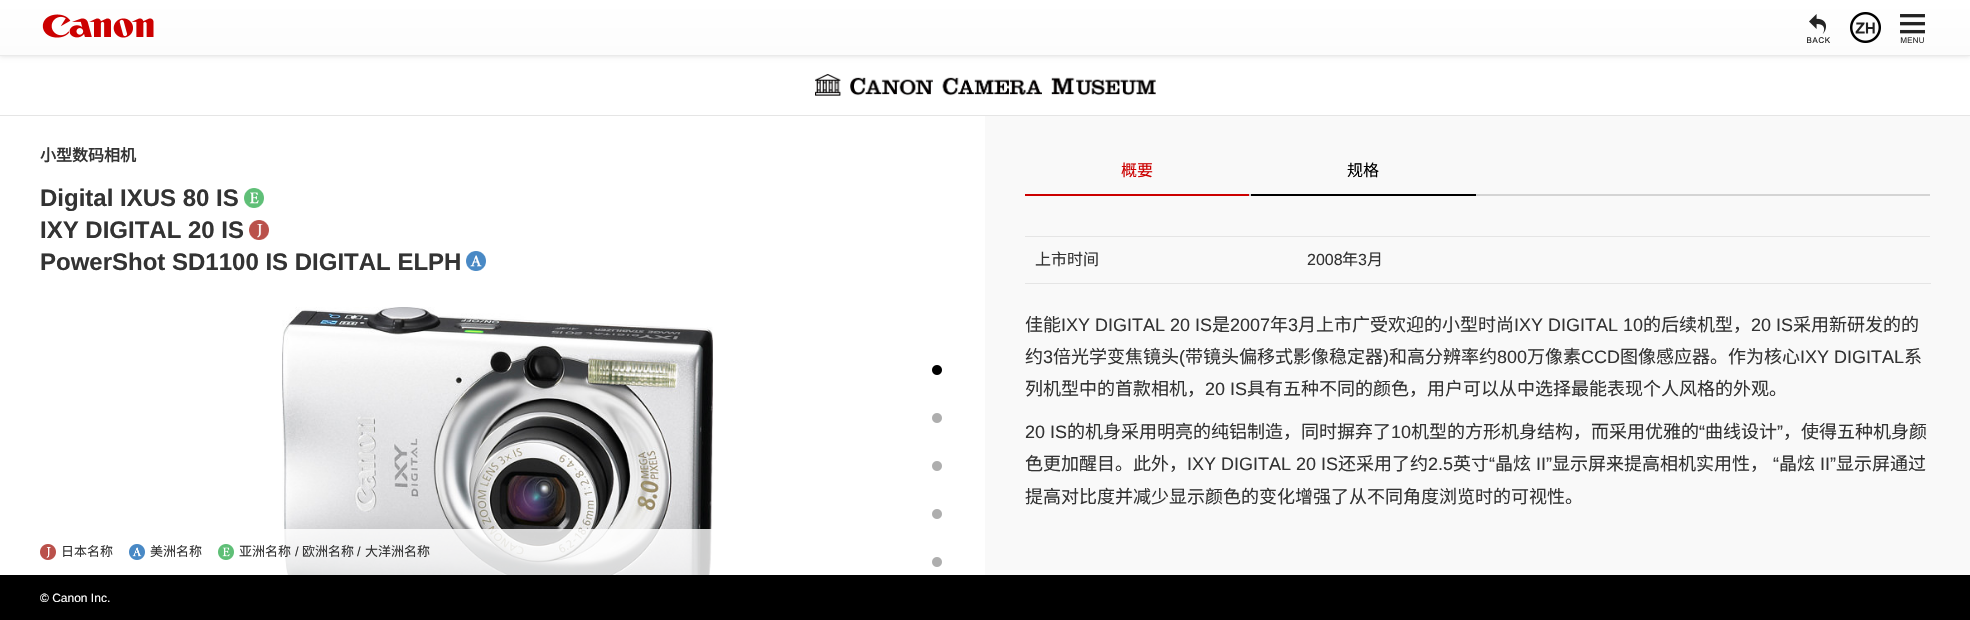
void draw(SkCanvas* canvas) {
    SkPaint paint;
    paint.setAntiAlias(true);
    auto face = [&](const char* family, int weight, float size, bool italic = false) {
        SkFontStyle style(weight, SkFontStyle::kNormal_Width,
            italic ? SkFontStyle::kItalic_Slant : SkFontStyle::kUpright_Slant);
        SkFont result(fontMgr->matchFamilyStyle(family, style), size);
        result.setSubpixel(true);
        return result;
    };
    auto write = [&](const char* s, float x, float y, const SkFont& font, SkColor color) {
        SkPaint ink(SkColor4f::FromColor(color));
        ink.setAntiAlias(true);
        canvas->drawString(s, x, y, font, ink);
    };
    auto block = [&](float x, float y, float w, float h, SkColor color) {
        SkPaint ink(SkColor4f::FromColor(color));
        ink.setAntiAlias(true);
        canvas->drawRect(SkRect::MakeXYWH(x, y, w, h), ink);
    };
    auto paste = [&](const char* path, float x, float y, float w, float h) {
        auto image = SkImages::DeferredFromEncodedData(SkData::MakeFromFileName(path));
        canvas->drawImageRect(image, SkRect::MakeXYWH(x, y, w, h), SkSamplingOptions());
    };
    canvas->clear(SK_ColorWHITE);
    paint.setColor(SkColorSetRGB(221, 221, 221));
    paint.setMaskFilter(SkMaskFilter::MakeBlur(kNormal_SkBlurStyle, 2.5f));
    canvas->drawRect(SkRect::MakeXYWH(0, 0, 1970, 56), paint);
    paint.setMaskFilter(nullptr);
    {
        const SkColor colors[] = {SK_ColorWHITE, SkColorSetRGB(252, 252, 252)};
        const float stops[] = {0, 1};
        const SkPoint ends[] = {{985, 0}, {985, 55}};
        paint.setShader(SkGradientShader::MakeLinear(ends, colors, stops, 2, SkTileMode::kClamp));
        paint.setAlpha(255);
    }
    canvas->drawRect(SkRect::MakeXYWH(0, 0, 1970, 55), paint);
    block(0, 55, 1970, 1, SkColorSetRGB(234, 234, 234));
    paste("pic1.png", 42, 14, 112, 24);
    paste("pic2.png", 1807, 14, 23, 29);
    paste("pic3.png", 1850, 12, 31, 31);
    paste("pic4.png", 1900, 14, 25, 29);
    block(0, 115, 1970, 1, SkColorSetRGB(229, 229, 229));
    paste("pic5.png", 815, 74, 341, 22);
    auto kFont1 = face("Noto Sans CJK SC", 700, 16);
    write("小型数码相机", 40, 161, kFont1, SkColorSetRGB(51, 51, 51));
    auto kFont2 = face("Liberation Sans", 700, 24);
    write("Digital IXUS 80 IS", 40, 206, kFont2, SkColorSetRGB(51, 51, 51));
    paste("pic6.png", 244, 188, 20, 20);
    write("IXY DIGITAL 20 IS", 40, 238, kFont2, SkColorSetRGB(51, 51, 51));
    paste("pic7.png", 249, 220, 20, 20);
    write("PowerShot SD1100 IS DIGITAL ELPH", 40, 270, kFont2, SkColorSetRGB(51, 51, 51));
    paste("pic8.png", 466, 251, 20, 20);
    paste("pic12.png", 282, 307, 431, 268);
    block(282, 529, 431, 46, SkColorSetARGB(204, 255, 255, 255));
    paste("pic9.png", 40, 544, 16, 16);
    auto kFont3 = face("Noto Sans CJK SC", 400, 13);
    write("日本名称", 61, 556, kFont3, SkColorSetRGB(51, 51, 51));
    paste("pic10.png", 129, 544, 16, 16);
    write("美洲名称", 150, 556, kFont3, SkColorSetRGB(51, 51, 51));
    paste("pic11.png", 218, 544, 16, 16);
    write("亚洲名称", 239, 556, kFont3, SkColorSetRGB(51, 51, 51));
    auto kFont4 = face("Liberation Sans", 400, 13);
    write("/", 295, 556, kFont4, SkColorSetRGB(51, 51, 51));
    write("欧洲名称", 302, 556, kFont3, SkColorSetRGB(51, 51, 51));
    write("/", 357, 556, kFont4, SkColorSetRGB(51, 51, 51));
    write("大洋洲名称", 365, 556, kFont3, SkColorSetRGB(51, 51, 51));
    paste("pic13.png", 932, 365, 10, 10);
    paste("pic14.png", 932, 413, 10, 10);
    paste("pic14.png", 932, 461, 10, 10);
    paste("pic14.png", 932, 509, 10, 10);
    paste("pic14.png", 932, 557, 10, 10);
    block(985, 116, 985, 459, SkColorSetRGB(249, 249, 249));
    block(1249, 194, 681, 2, SkColorSetRGB(212, 212, 212));
    block(1025, 194, 224, 2, SkColorSetRGB(204, 0, 0));
    auto kFont5 = face("Noto Sans CJK SC", 400, 16);
    write("概要", 1121, 176, kFont5, SkColorSetRGB(204, 0, 0));
    block(1251, 194, 225, 2, SK_ColorBLACK);
    write("规格", 1347, 176, kFont5, SK_ColorBLACK);
    block(1025, 236, 905, 1, SkColorSetRGB(229, 229, 229));
    write("上市时间", 1035, 265, kFont5, SkColorSetRGB(51, 51, 51));
    block(1025, 283, 906, 1, SkColorSetRGB(229, 229, 229));
    auto kFont6 = face("Liberation Sans", 400, 16);
    write("2008", 1307, 265, kFont6, SkColorSetRGB(51, 51, 51));
    write("年", 1342, 265, kFont5, SkColorSetRGB(51, 51, 51));
    write("3", 1358, 265, kFont6, SkColorSetRGB(51, 51, 51));
    write("月", 1367, 265, kFont5, SkColorSetRGB(51, 51, 51));
    auto kFont7 = face("Noto Sans CJK SC", 400, 18);
    write("佳能", 1025, 331, kFont7, SkColorSetRGB(51, 51, 51));
    auto kFont8 = face("Liberation Sans", 400, 18);
    write("IXY DIGITAL 20 IS", 1061, 331, kFont8, SkColorSetRGB(51, 51, 51));
    write("是", 1212, 331, kFont7, SkColorSetRGB(51, 51, 51));
    write("2007", 1230, 331, kFont8, SkColorSetRGB(51, 51, 51));
    write("年", 1270, 331, kFont7, SkColorSetRGB(51, 51, 51));
    write("3", 1288, 331, kFont8, SkColorSetRGB(51, 51, 51));
    write("月上市广受欢迎的小型时尚", 1298, 331, kFont7, SkColorSetRGB(51, 51, 51));
    write("IXY DIGITAL 10", 1514, 331, kFont8, SkColorSetRGB(51, 51, 51));
    write("的后续机型，", 1643, 331, kFont7, SkColorSetRGB(51, 51, 51));
    write("20 IS", 1751, 331, kFont8, SkColorSetRGB(51, 51, 51));
    write("采用新研发的的", 1793, 331, kFont7, SkColorSetRGB(51, 51, 51));
    write("约", 1025, 363, kFont7, SkColorSetRGB(51, 51, 51));
    write("3", 1043, 363, kFont8, SkColorSetRGB(51, 51, 51));
    write("倍光学变焦镜头", 1053, 363, kFont7, SkColorSetRGB(51, 51, 51));
    write("(", 1179, 363, kFont8, SkColorSetRGB(51, 51, 51));
    write("带镜头偏移式影像稳定器", 1185, 363, kFont7, SkColorSetRGB(51, 51, 51));
    write(")", 1383, 363, kFont8, SkColorSetRGB(51, 51, 51));
    write("和高分辨率约", 1389, 363, kFont7, SkColorSetRGB(51, 51, 51));
    write("800", 1497, 363, kFont8, SkColorSetRGB(51, 51, 51));
    write("万像素", 1527, 363, kFont7, SkColorSetRGB(51, 51, 51));
    write("CCD", 1581, 363, kFont8, SkColorSetRGB(51, 51, 51));
    write("图像感应器。作为核心", 1620, 363, kFont7, SkColorSetRGB(51, 51, 51));
    write("IXY DIGITAL", 1800, 363, kFont8, SkColorSetRGB(51, 51, 51));
    write("系", 1904, 363, kFont7, SkColorSetRGB(51, 51, 51));
    write("列机型中的首款相机，", 1025, 395, kFont7, SkColorSetRGB(51, 51, 51));
    write("20 IS", 1205, 395, kFont8, SkColorSetRGB(51, 51, 51));
    write("具有五种不同的颜色，用户可以从中选择最能表现个人风格的外观。", 1247, 395, kFont7, SkColorSetRGB(51, 51, 51));
    write("20 IS", 1025, 438, kFont8, SkColorSetRGB(51, 51, 51));
    write("的机身采用明亮的纯铝制造，同时摒弃了", 1067, 438, kFont7, SkColorSetRGB(51, 51, 51));
    write("10", 1391, 438, kFont8, SkColorSetRGB(51, 51, 51));
    write("机型的方形机身结构，而采用优雅的", 1411, 438, kFont7, SkColorSetRGB(51, 51, 51));
    write("“", 1699, 438, kFont8, SkColorSetRGB(51, 51, 51));
    write("曲线设计", 1705, 438, kFont7, SkColorSetRGB(51, 51, 51));
    write("”", 1777, 438, kFont8, SkColorSetRGB(51, 51, 51));
    write("，使得五种机身颜", 1783, 438, kFont7, SkColorSetRGB(51, 51, 51));
    write("色更加醒目。此外，", 1025, 470, kFont7, SkColorSetRGB(51, 51, 51));
    write("IXY DIGITAL 20 IS", 1187, 470, kFont8, SkColorSetRGB(51, 51, 51));
    write("还采用了约", 1338, 470, kFont7, SkColorSetRGB(51, 51, 51));
    write("2.5", 1428, 470, kFont8, SkColorSetRGB(51, 51, 51));
    write("英寸", 1453, 470, kFont7, SkColorSetRGB(51, 51, 51));
    write("“", 1489, 470, kFont8, SkColorSetRGB(51, 51, 51));
    write("晶炫", 1495, 470, kFont7, SkColorSetRGB(51, 51, 51));
    write("II”", 1536, 470, kFont8, SkColorSetRGB(51, 51, 51));
    write("显示屏来提高相机实用性，", 1552, 470, kFont7, SkColorSetRGB(51, 51, 51));
    write("“", 1773, 470, kFont8, SkColorSetRGB(51, 51, 51));
    write("晶炫", 1779, 470, kFont7, SkColorSetRGB(51, 51, 51));
    write("II”", 1820, 470, kFont8, SkColorSetRGB(51, 51, 51));
    write("显示屏通过", 1836, 470, kFont7, SkColorSetRGB(51, 51, 51));
    write("提高对比度并减少显示颜色的变化增强了从不同角度浏览时的可视性。", 1025, 503, kFont7, SkColorSetRGB(51, 51, 51));
    block(0, 575, 1970, 45, SK_ColorBLACK);
    auto kFont9 = face("Liberation Sans", 400, 12);
    write("© Canon Inc.", 40, 602, kFont9, SK_ColorWHITE);
}
